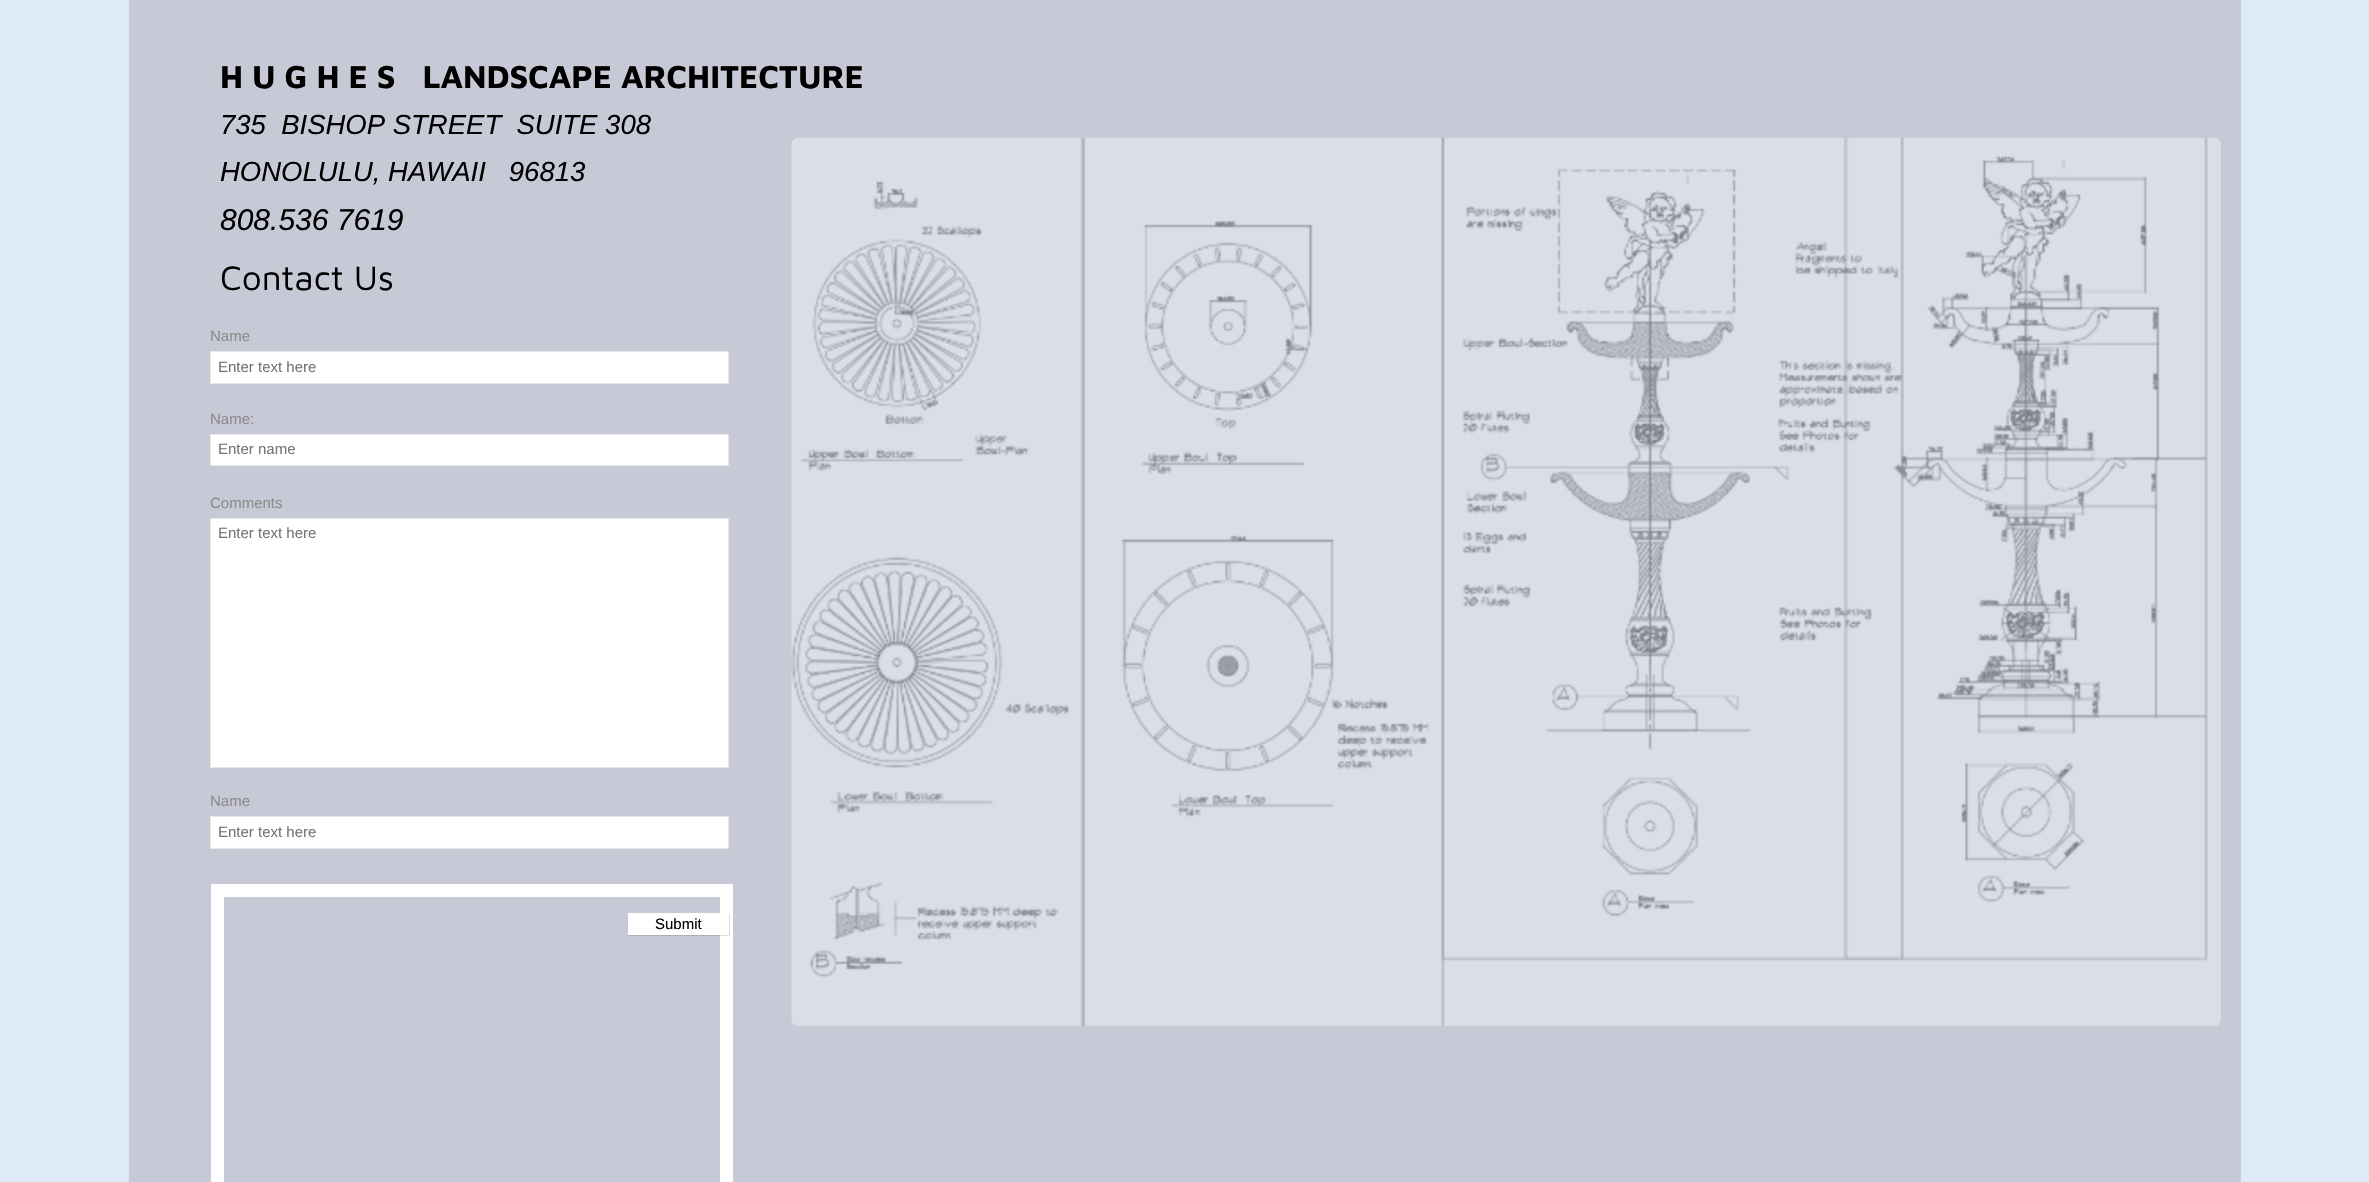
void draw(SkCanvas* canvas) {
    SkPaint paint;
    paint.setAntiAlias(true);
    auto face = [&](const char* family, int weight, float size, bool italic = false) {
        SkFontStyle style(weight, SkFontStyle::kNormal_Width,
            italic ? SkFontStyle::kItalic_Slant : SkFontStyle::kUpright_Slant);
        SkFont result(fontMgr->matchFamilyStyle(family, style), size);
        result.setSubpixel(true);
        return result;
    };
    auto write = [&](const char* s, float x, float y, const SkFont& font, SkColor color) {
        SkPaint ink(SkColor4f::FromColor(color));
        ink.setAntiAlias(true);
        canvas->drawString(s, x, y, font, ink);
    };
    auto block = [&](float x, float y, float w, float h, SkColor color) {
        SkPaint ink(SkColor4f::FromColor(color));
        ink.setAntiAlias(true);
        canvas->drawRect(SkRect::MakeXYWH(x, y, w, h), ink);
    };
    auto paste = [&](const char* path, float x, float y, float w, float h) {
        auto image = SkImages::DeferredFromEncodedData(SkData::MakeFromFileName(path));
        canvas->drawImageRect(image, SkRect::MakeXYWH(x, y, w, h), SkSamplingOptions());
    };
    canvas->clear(SkColorSetRGB(222, 234, 247));
    block(129, 0, 2112, 1182, SkColorSetRGB(199, 202, 214));
    auto kFont1 = face("Maven Pro", 700, 32.5f);
    write("H U G H E S   LANDSCAPE ARCHITECTURE", 220, 88, kFont1, SK_ColorBLACK);
    auto kFont2 = face("Liberation Sans", 400, 27.5f, true);
    write("735  BISHOP STREET  SUITE 308", 220, 134, kFont2, SK_ColorBLACK);
    write("HONOLULU, HAWAII   96813", 220, 181, kFont2, SK_ColorBLACK);
    auto kFont3 = face("Liberation Sans", 400, 30, true);
    write("808.536 7619", 220, 230, kFont3, SK_ColorBLACK);
    paste("pic1.png", 791, 137, 1430, 889);
    auto kFont4 = face("Maven Pro", 400, 35);
    write("Contact Us", 220, 290, kFont4, SK_ColorBLACK);
    auto kFont5 = face("Liberation Sans", 400, 15);
    write("Name", 210, 341, kFont5, SkColorSetRGB(141, 139, 139));
    paint.setColor(SK_ColorWHITE);
    canvas->drawRect(SkRect::MakeXYWH(210.5f, 351.5f, 518, 32), paint);
    paint.setStyle(SkPaint::kStroke_Style);
    paint.setStrokeWidth(1);
    paint.setColor(SkColorSetRGB(231, 231, 231));
    canvas->drawRect(SkRect::MakeXYWH(210.5f, 351.5f, 518, 32), paint);
    write("Enter text here", 218, 372, kFont5, SkColorSetRGB(117, 117, 117));
    write("Name:", 210, 424, kFont5, SkColorSetRGB(141, 139, 139));
    paint.setStyle(SkPaint::kFill_Style);
    paint.setColor(SK_ColorWHITE);
    canvas->drawRect(SkRect::MakeXYWH(210.5f, 434.5f, 518, 31), paint);
    paint.setStyle(SkPaint::kStroke_Style);
    paint.setColor(SkColorSetRGB(231, 231, 231));
    canvas->drawRect(SkRect::MakeXYWH(210.5f, 434.5f, 518, 31), paint);
    write("Enter name", 218, 454, kFont5, SkColorSetRGB(117, 117, 117));
    write("Comments", 210, 508, kFont5, SkColorSetRGB(141, 139, 139));
    paint.setStyle(SkPaint::kFill_Style);
    paint.setColor(SK_ColorWHITE);
    canvas->drawRect(SkRect::MakeXYWH(210.5f, 518.5f, 518, 249), paint);
    paint.setStyle(SkPaint::kStroke_Style);
    paint.setColor(SkColorSetRGB(231, 231, 231));
    canvas->drawRect(SkRect::MakeXYWH(210.5f, 518.5f, 518, 249), paint);
    write("Enter text here", 218, 538, kFont5, SkColorSetRGB(117, 117, 117));
    write("Name", 210, 806, kFont5, SkColorSetRGB(141, 139, 139));
    paint.setStyle(SkPaint::kFill_Style);
    paint.setColor(SK_ColorWHITE);
    canvas->drawRect(SkRect::MakeXYWH(210.5f, 816.5f, 518, 32), paint);
    paint.setStyle(SkPaint::kStroke_Style);
    paint.setColor(SkColorSetRGB(231, 231, 231));
    canvas->drawRect(SkRect::MakeXYWH(210.5f, 816.5f, 518, 32), paint);
    write("Enter text here", 218, 837, kFont5, SkColorSetRGB(117, 117, 117));
    paint.setStrokeWidth(13);
    paint.setColor(SK_ColorWHITE);
    canvas->drawRect(SkRect::MakeXYWH(217.5f, 890.5f, 509, 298), paint);
    paint.setStyle(SkPaint::kFill_Style);
    paint.setColor(SkColorSetARGB(33, 0, 0, 0));
    canvas->drawPath(SkPathBuilder().moveTo(629, 935).lineTo(629, 936).lineTo(730, 936).lineTo(730, 914).lineTo(729, 914).lineTo(729, 935).close().detach(), paint);
    block(628, 913, 92, 22, SK_ColorWHITE);
    write("Submit", 655, 929, kFont5, SK_ColorBLACK);
}
